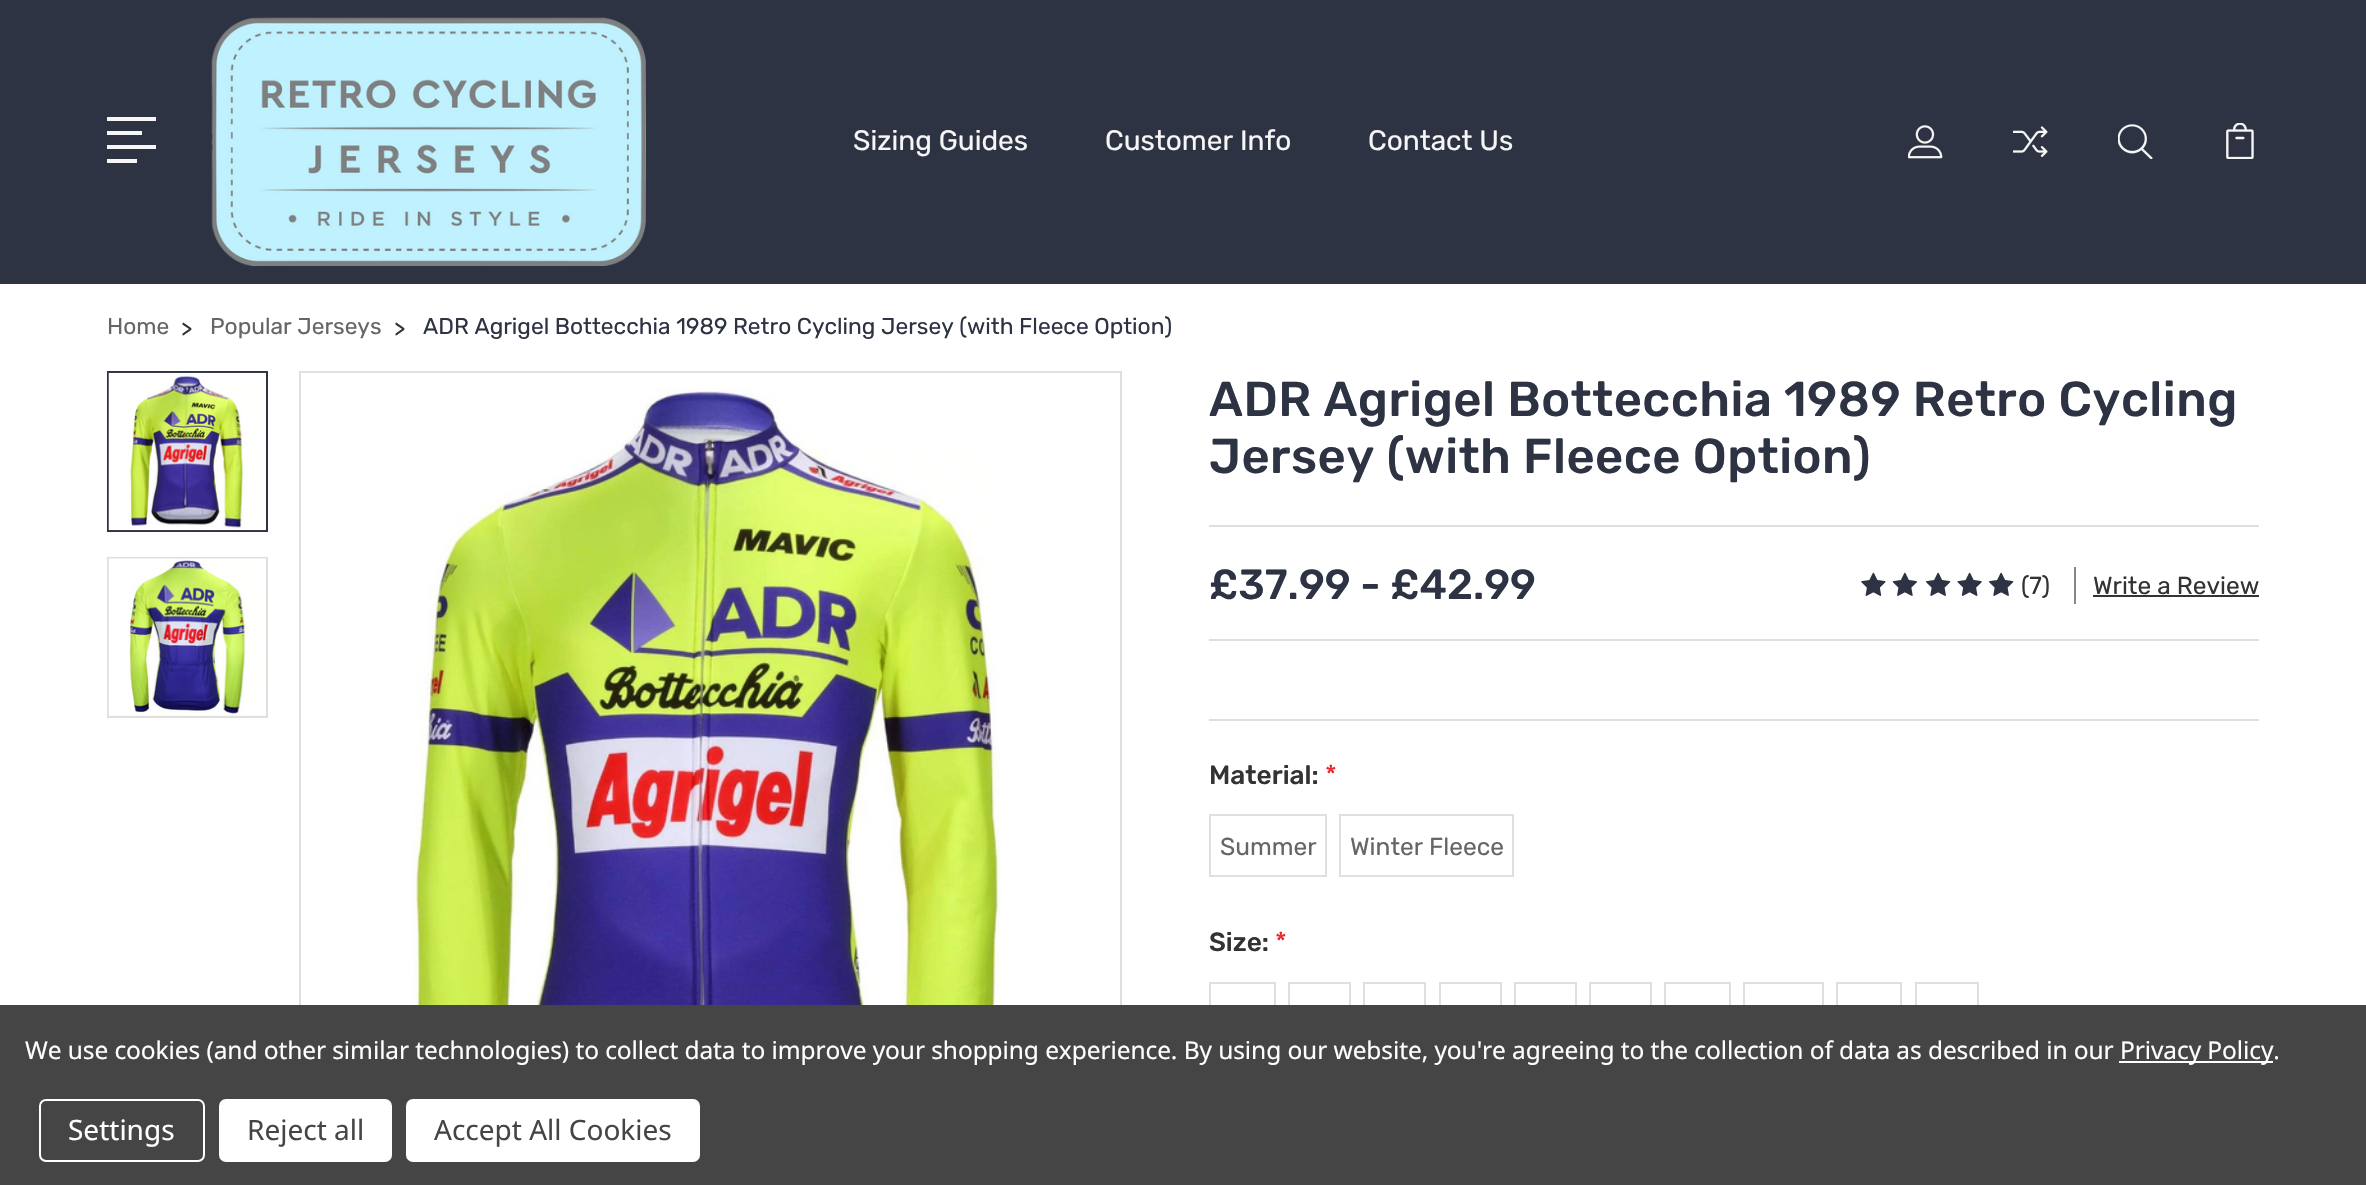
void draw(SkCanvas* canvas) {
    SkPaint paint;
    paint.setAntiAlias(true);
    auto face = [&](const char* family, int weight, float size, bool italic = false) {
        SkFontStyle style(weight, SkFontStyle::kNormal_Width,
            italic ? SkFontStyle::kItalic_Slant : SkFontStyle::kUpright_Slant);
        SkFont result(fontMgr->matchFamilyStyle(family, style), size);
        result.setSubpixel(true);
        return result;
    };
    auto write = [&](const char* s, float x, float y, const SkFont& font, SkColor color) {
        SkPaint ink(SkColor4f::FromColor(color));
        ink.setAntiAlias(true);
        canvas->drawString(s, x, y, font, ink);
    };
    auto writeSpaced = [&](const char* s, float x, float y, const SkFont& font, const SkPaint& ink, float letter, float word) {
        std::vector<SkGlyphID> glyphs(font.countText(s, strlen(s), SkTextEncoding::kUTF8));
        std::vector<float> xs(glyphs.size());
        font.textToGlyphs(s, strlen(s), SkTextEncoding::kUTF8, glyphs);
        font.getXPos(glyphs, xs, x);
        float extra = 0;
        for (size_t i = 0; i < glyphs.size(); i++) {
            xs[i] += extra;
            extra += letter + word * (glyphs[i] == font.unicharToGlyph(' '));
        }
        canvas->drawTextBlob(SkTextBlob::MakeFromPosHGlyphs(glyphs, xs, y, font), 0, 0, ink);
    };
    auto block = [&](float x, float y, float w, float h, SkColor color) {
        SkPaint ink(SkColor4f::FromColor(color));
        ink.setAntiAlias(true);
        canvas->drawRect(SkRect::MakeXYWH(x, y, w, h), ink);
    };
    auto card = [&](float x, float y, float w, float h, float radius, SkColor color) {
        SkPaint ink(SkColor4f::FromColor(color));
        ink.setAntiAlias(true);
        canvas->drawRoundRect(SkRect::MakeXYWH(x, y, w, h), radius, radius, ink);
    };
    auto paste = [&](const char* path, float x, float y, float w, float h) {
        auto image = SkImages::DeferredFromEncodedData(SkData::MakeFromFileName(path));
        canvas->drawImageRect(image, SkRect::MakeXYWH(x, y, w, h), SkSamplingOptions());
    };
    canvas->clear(SK_ColorWHITE);
    block(0, 0, 2366, 284, SkColorSetRGB(46, 51, 68));
    block(107, 117, 49, 4, SkColorSetRGB(246, 246, 246));
    block(107, 131, 35, 4, SkColorSetRGB(246, 246, 246));
    block(107, 145, 49, 4, SkColorSetRGB(246, 246, 246));
    block(107, 159, 30, 4, SkColorSetRGB(246, 246, 246));
    paste("pic1.png", 211, 17, 435, 249);
    auto kFont1 = face("Rubik", 400, 28);
    write("Sizing Guides", 853, 150, kFont1, SkColorSetRGB(246, 246, 246));
    write("Customer Info", 1105, 150, kFont1, SkColorSetRGB(246, 246, 246));
    write("Contact Us", 1368, 150, kFont1, SkColorSetRGB(246, 246, 246));
    paste("pic2.png", 1908, 125, 35, 34);
    paste("pic3.png", 2013, 126, 35, 31);
    paste("pic4.png", 2118, 124, 35, 35);
    paste("pic5.png", 2226, 123, 28, 36);
    auto kFont2 = face("Rubik", 400, 22.75f);
    write("Home", 107, 334, kFont2, SkColorSetRGB(102, 102, 102));
    write(">", 181, 336, kFont2, SkColorSetRGB(51, 51, 51));
    write("Popular Jerseys", 210, 334, kFont2, SkColorSetRGB(102, 102, 102));
    write(">", 394, 336, kFont2, SkColorSetRGB(51, 51, 51));
    write("ADR Agrigel Bottecchia 1989 Retro Cycling Jersey (with Fleece Option)", 423, 334, kFont2, SkColorSetRGB(46, 51, 68));
    paint.setStyle(SkPaint::kStroke_Style);
    paint.setStrokeWidth(2);
    paint.setColor(SkColorSetRGB(46, 51, 68));
    canvas->drawRect(SkRect::MakeXYWH(108, 372, 159, 159), paint);
    paste("pic6.png", 108, 372, 158, 159);
    block(109, 715, 157, 1, SkColorSetRGB(244, 244, 244));
    paint.setColor(SkColorSetRGB(223, 223, 223));
    canvas->drawRect(SkRect::MakeXYWH(108, 558, 159, 159), paint);
    paste("pic7.png", 108, 558, 158, 158);
    canvas->drawRect(SkRect::MakeXYWH(300, 372, 821, 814), paint);
    paste("pic8.png", 412, 388, 590, 617);
    block(1209, 719, 1050, 2, SkColorSetRGB(223, 223, 223));
    auto kFont3 = face("Rubik", 500, 49);
    paint.setStyle(SkPaint::kFill_Style);
    paint.setColor(SkColorSetRGB(46, 51, 68));
    writeSpaced("ADR Agrigel Bottecchia 1989 Retro Cycling", 1209, 416, kFont3, paint, 0.45f, 0);
    writeSpaced("Jersey (with Fleece Option)", 1209, 473, kFont3, paint, 0.45f, 0);
    block(1209, 525, 1050, 2, SkColorSetRGB(223, 223, 223));
    block(1209, 639, 1050, 2, SkColorSetRGB(223, 223, 223));
    auto kFont4 = face("Rubik", 500, 42);
    write("£37.99 - £42.99", 1209, 599, kFont4, SkColorSetRGB(46, 51, 68));
    paste("pic9.png", 1861, 572, 25, 24);
    paste("pic10.png", 1892, 572, 25, 24);
    paste("pic11.png", 1926, 572, 25, 24);
    paste("pic12.png", 1957, 572, 25, 24);
    paste("pic11.png", 1989, 572, 25, 24);
    auto kFont5 = face("Rubik", 400, 24.5f);
    write("(7)", 2021, 594, kFont5, SkColorSetRGB(51, 51, 51));
    block(2074, 567, 2, 37, SkColorSetRGB(136, 136, 136));
    write("Write a Review", 2093, 594, kFont5, SkColorSetRGB(51, 51, 51));
    block(2093, 595, 166, 2, SkColorSetRGB(51, 51, 51));
    auto kFont6 = face("Rubik", 500, 26.25f);
    write("Material:", 1209, 784, kFont6, SkColorSetRGB(51, 51, 51));
    auto kFont7 = face("Rubik", 400, 26.25f);
    write("*", 1325, 784, kFont7, SkColorSetRGB(234, 39, 45));
    paint.setStyle(SkPaint::kStroke_Style);
    paint.setColor(SkColorSetRGB(223, 223, 223));
    canvas->drawRect(SkRect::MakeXYWH(1210, 815, 116, 61), paint);
    write("Summer", 1220, 855, kFont5, SkColorSetRGB(102, 102, 102));
    canvas->drawRect(SkRect::MakeXYWH(1340, 815, 173, 61), paint);
    write("Winter Fleece", 1350, 855, kFont5, SkColorSetRGB(102, 102, 102));
    write("Size:", 1209, 951, kFont6, SkColorSetRGB(51, 51, 51));
    write("*", 1275, 951, kFont7, SkColorSetRGB(234, 39, 45));
    canvas->drawRect(SkRect::MakeXYWH(1210, 983, 65, 61), paint);
    canvas->drawRect(SkRect::MakeXYWH(1289, 983, 61, 61), paint);
    canvas->drawRect(SkRect::MakeXYWH(1364, 983, 61, 61), paint);
    canvas->drawRect(SkRect::MakeXYWH(1440, 983, 61, 61), paint);
    canvas->drawRect(SkRect::MakeXYWH(1515, 983, 61, 61), paint);
    canvas->drawRect(SkRect::MakeXYWH(1590, 983, 61, 61), paint);
    canvas->drawRect(SkRect::MakeXYWH(1665, 983, 65, 61), paint);
    canvas->drawRect(SkRect::MakeXYWH(1744, 983, 79, 61), paint);
    canvas->drawRect(SkRect::MakeXYWH(1837, 983, 64, 61), paint);
    canvas->drawRect(SkRect::MakeXYWH(1916, 983, 62, 61), paint);
    block(0, 1005, 2366, 180, SkColorSetRGB(69, 69, 69));
    auto kFont8 = face("Noto Sans", 400, 24.5f);
    paint.setStyle(SkPaint::kFill_Style);
    paint.setColor(SK_ColorWHITE);
    writeSpaced("We use cookies (and other similar technologies) to collect data to improve your shopping experience. By using our website, you're agreeing to the collection of data as described in our", 25, 1059, kFont8, paint, -0.09f, 0);
    block(2119, 1061, 154, 2, SK_ColorWHITE);
    writeSpaced("Privacy Policy.", 2120, 1059, kFont8, paint, -0.09f, 0);
    paint.setStyle(SkPaint::kStroke_Style);
    canvas->drawRoundRect(SkRect::MakeXYWH(40, 1100, 164, 61), 6, 6, paint);
    auto kFont9 = face("Noto Sans", 400, 28);
    write("Settings", 68, 1140, kFont9, SK_ColorWHITE);
    card(219, 1099, 173, 63, 7, SK_ColorWHITE);
    write("Reject all", 247, 1140, kFont9, SkColorSetRGB(69, 69, 69));
    card(406, 1099, 294, 63, 7, SK_ColorWHITE);
    write("Accept All Cookies", 434, 1140, kFont9, SkColorSetRGB(69, 69, 69));
}
